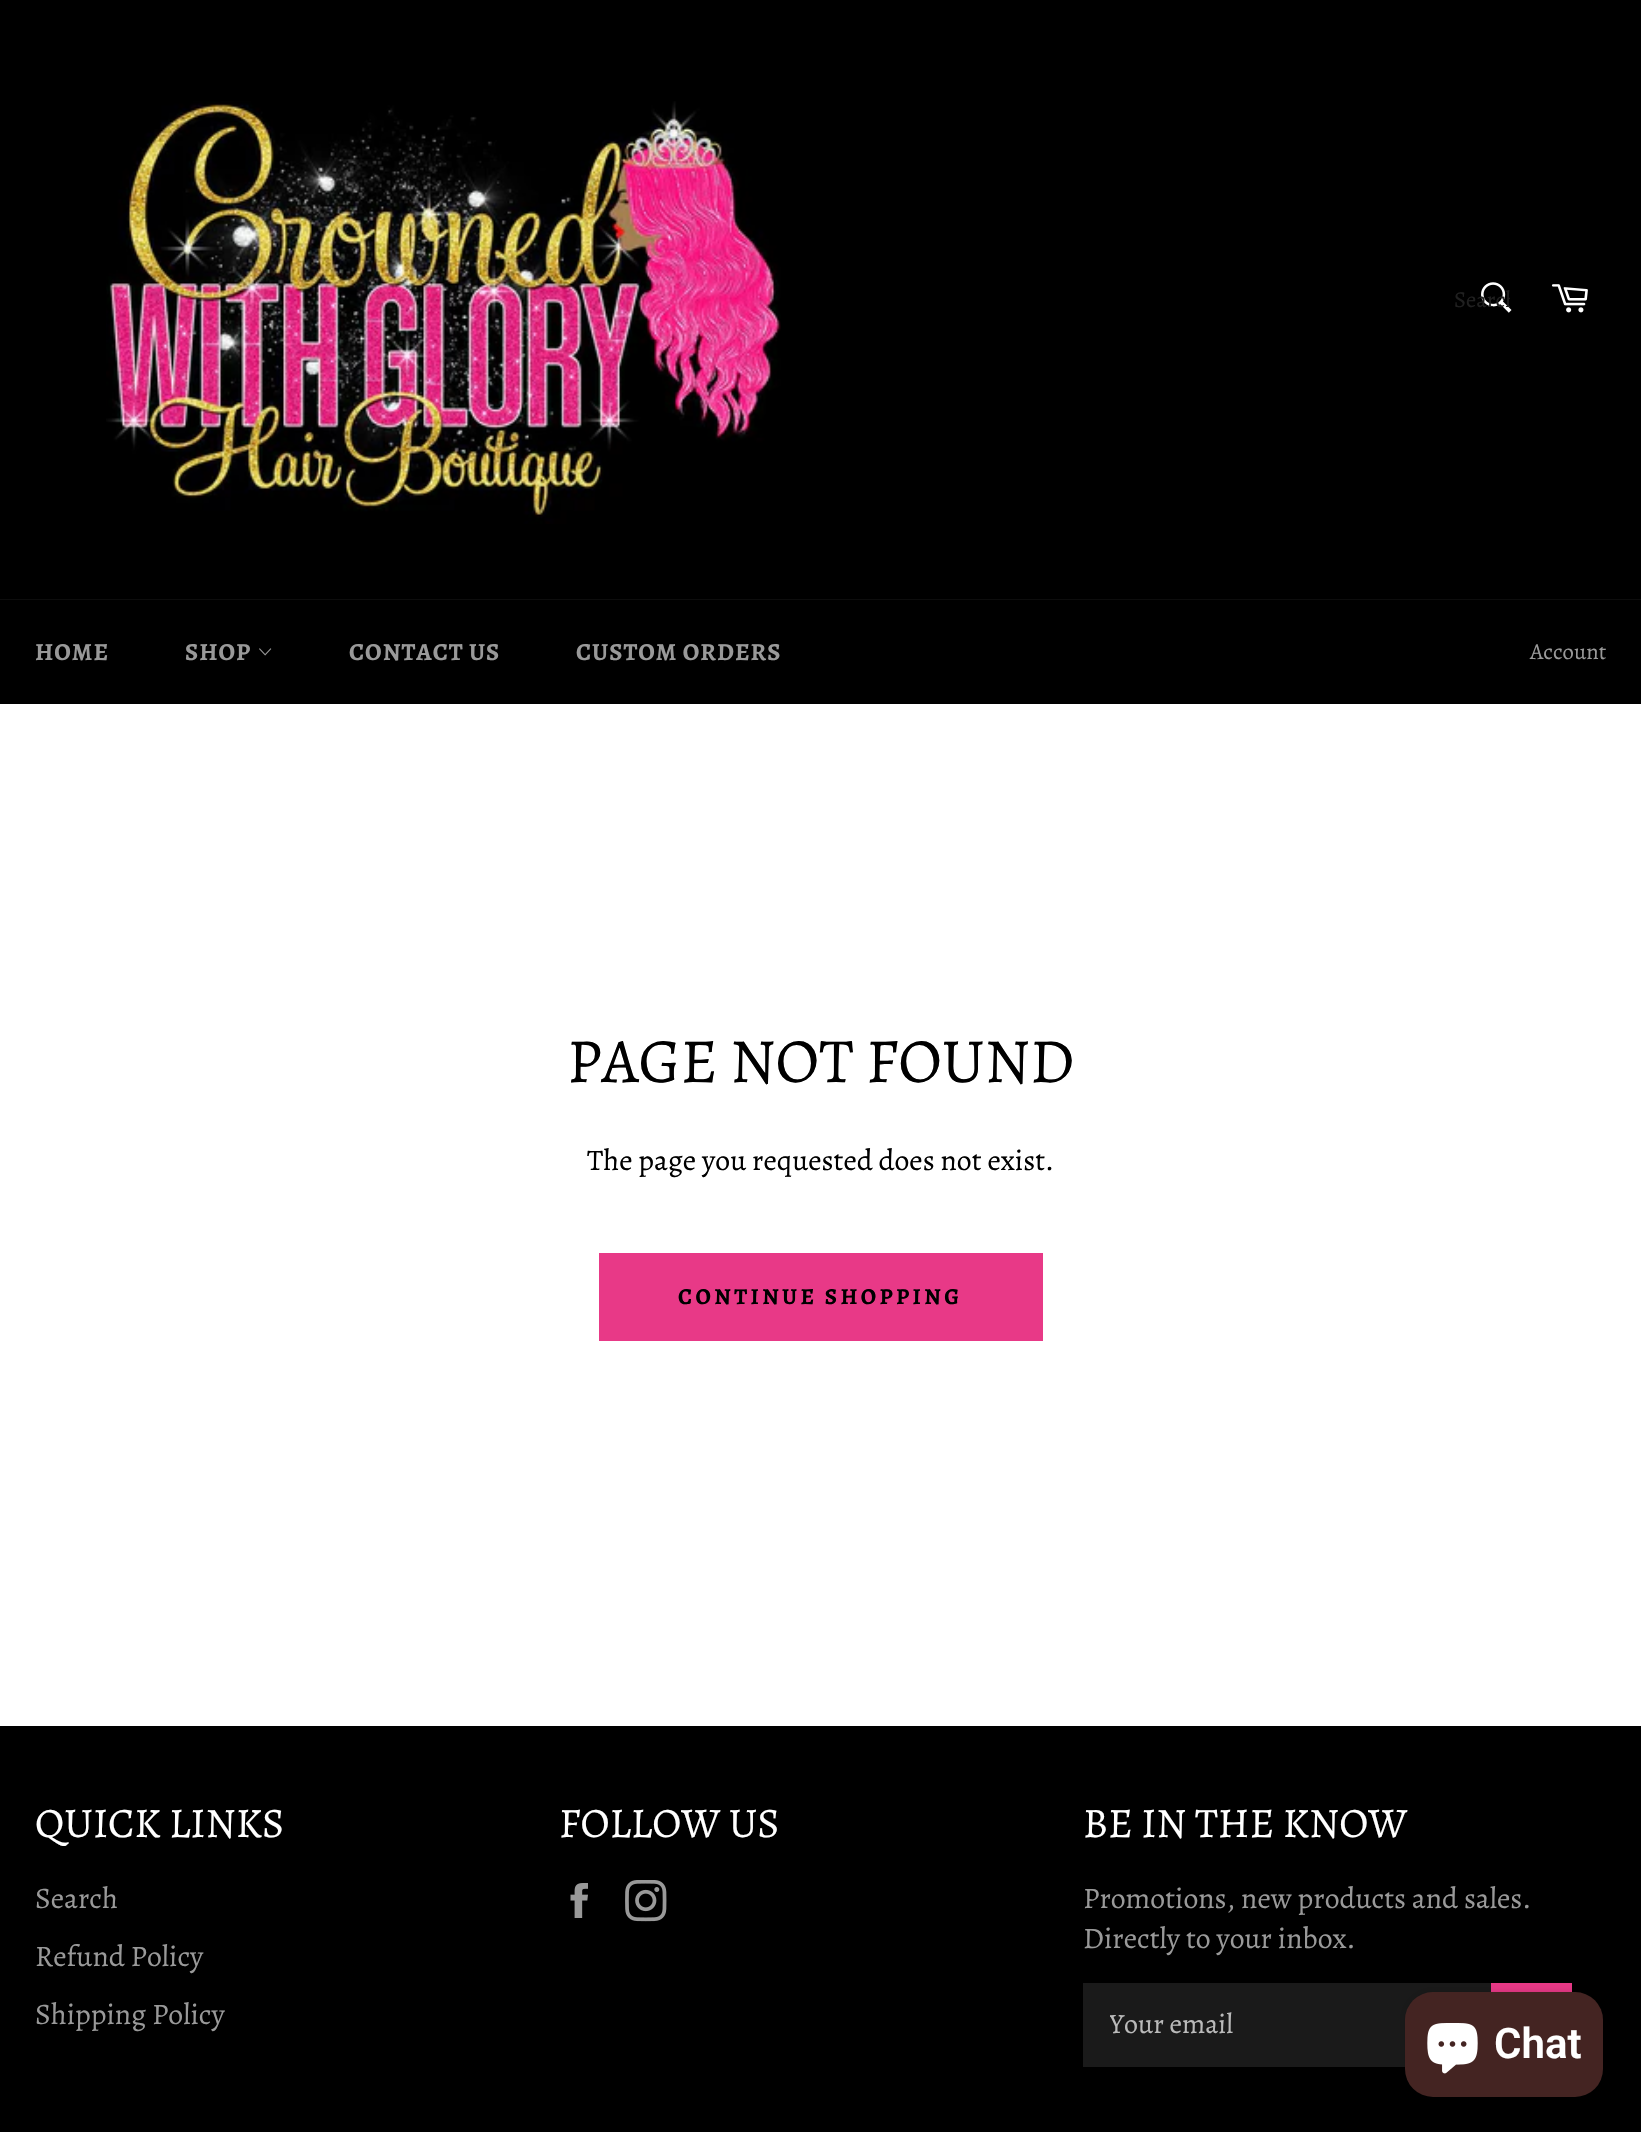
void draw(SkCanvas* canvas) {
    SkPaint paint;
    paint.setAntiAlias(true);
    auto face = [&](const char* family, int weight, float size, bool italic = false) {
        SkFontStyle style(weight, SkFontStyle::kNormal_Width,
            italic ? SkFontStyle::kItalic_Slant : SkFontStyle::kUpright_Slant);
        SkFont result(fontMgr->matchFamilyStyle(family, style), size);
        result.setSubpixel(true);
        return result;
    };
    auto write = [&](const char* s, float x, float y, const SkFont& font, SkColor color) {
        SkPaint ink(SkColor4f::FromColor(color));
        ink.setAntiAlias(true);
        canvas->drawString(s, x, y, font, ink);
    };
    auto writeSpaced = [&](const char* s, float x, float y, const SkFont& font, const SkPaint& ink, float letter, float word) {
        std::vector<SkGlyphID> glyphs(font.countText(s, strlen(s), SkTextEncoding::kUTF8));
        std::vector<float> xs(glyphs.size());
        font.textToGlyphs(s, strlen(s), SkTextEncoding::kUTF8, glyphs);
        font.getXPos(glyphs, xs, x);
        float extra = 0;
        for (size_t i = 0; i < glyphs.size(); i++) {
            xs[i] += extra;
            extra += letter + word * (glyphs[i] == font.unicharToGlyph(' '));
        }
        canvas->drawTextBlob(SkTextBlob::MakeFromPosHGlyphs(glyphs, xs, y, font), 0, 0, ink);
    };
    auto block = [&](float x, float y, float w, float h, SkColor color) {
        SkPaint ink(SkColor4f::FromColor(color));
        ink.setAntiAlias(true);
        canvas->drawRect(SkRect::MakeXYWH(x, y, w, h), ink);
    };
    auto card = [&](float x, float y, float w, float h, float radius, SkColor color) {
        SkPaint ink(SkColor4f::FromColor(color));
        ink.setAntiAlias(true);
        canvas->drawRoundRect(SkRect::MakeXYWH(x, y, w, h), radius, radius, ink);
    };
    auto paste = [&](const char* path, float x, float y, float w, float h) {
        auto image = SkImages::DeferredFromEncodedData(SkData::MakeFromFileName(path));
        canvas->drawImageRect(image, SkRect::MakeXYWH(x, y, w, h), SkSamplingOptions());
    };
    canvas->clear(SK_ColorWHITE);
    block(0, 0, 1641, 599, SK_ColorBLACK);
    paste("pic1.png", 106, 101, 675, 423);
    paste("pic2.png", 1481, 282, 31, 31);
    canvas->save();
    canvas->clipRect(SkRect::MakeXYWH(1454, 285, 56, 30));
    auto kFont1 = face("Alegreya", 400, 22.75f);
    write("Search", 1454, 307, kFont1, SkColorSetRGB(32, 32, 32));
    canvas->restore();
    paste("pic3.png", 1551, 284, 37, 29);
    block(0, 599, 1641, 1, SkColorSetRGB(13, 13, 13));
    block(0, 600, 1641, 104, SK_ColorBLACK);
    auto kFont2 = face("Alegreya", 700, 24.5f);
    paint.setColor(SkColorSetRGB(153, 153, 153));
    writeSpaced("HOME", 35, 660, kFont2, paint, 1, 0);
    writeSpaced("SHOP", 185, 660, kFont2, paint, 1, 0);
    paste("pic4.png", 259, 648, 13, 8);
    writeSpaced("CONTACT US", 349, 660, kFont2, paint, 1, 0);
    writeSpaced("CUSTOM ORDERS", 576, 660, kFont2, paint, 1, 0);
    write("Account", 1530, 659, kFont1, SkColorSetRGB(153, 153, 153));
    auto kFont3 = face("Alegreya", 400, 63);
    write("PAGE NOT FOUND", 567, 1082, kFont3, SK_ColorBLACK);
    auto kFont4 = face("Alegreya", 400, 29.75f);
    write("The page you requested does not exist.", 587, 1170, kFont4, SK_ColorBLACK);
    block(599, 1253, 444, 88, SkColorSetRGB(232, 57, 135));
    auto kFont5 = face("Alegreya", 700, 22.75f);
    paint.setColor(SK_ColorBLACK);
    writeSpaced("CONTINUE SHOPPING", 678, 1304, kFont5, paint, 3.4f, 0);
    block(0, 1726, 1641, 406, SK_ColorBLACK);
    auto kFont6 = face("Alegreya", 400, 42);
    write("QUICK LINKS", 35, 1837, kFont6, SK_ColorWHITE);
    write("Search", 35, 1908, kFont4, SkColorSetRGB(153, 153, 153));
    write("Refund Policy", 35, 1966, kFont4, SkColorSetRGB(153, 153, 153));
    write("Shipping Policy", 35, 2024, kFont4, SkColorSetRGB(153, 153, 153));
    write("FOLLOW US", 559, 1837, kFont6, SK_ColorWHITE);
    paste("pic5.png", 570, 1883, 18, 35);
    paste("pic6.png", 625, 1880, 42, 42);
    write("BE IN THE KNOW", 1083, 1837, kFont6, SK_ColorWHITE);
    write("Promotions, new products and sales.", 1083, 1908, kFont4, SkColorSetRGB(153, 153, 153));
    write("Directly to your inbox.", 1083, 1948, kFont4, SkColorSetRGB(153, 153, 153));
    block(1491, 1983, 81, 9, SkColorSetRGB(232, 57, 135));
    block(1083, 1983, 408, 84, SkColorSetRGB(26, 26, 26));
    canvas->save();
    canvas->clipRect(SkRect::MakeXYWH(1110, 2006, 355, 38));
    auto kFont7 = face("Alegreya", 400, 28);
    write("Your email", 1109, 2033, kFont7, SkColorSetRGB(186, 186, 186));
    canvas->restore();
    paint.setColor(SkColorSetARGB(38, 0, 0, 0));
    paint.setMaskFilter(SkMaskFilter::MakeBlur(kNormal_SkBlurStyle, 4.5f));
    canvas->drawRoundRect(SkRect::MakeXYWH(1405, 1992, 198, 105), 28, 28, paint);
    paint.setMaskFilter(nullptr);
    card(1405, 1992, 198, 105, 28, SkColorSetRGB(68, 36, 34));
    paste("pic7.png", 1427, 2023, 51, 51);
    auto kFont8 = face("Roboto", 600, 42);
    write("Chat", 1494, 2058, kFont8, SK_ColorWHITE);
}
